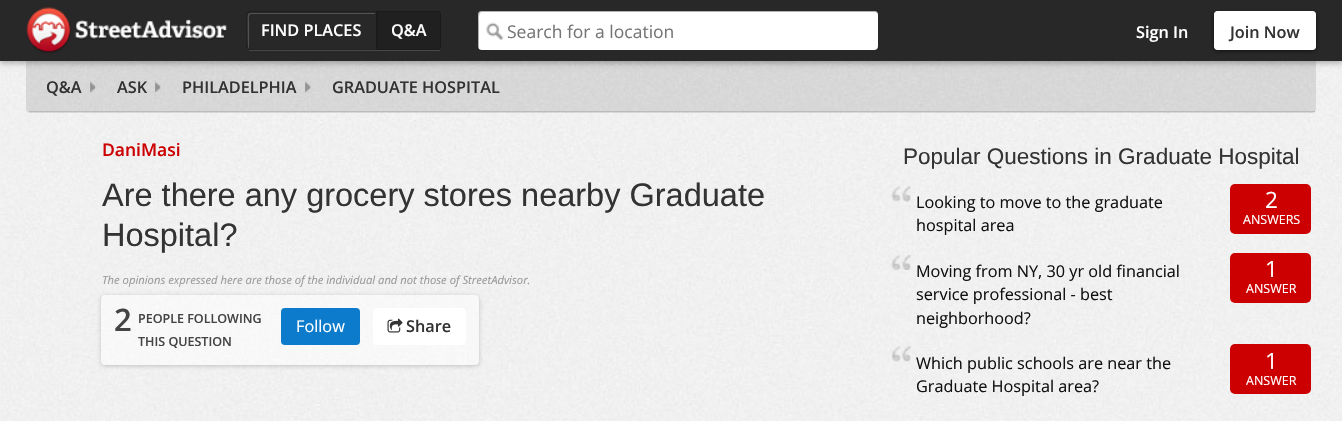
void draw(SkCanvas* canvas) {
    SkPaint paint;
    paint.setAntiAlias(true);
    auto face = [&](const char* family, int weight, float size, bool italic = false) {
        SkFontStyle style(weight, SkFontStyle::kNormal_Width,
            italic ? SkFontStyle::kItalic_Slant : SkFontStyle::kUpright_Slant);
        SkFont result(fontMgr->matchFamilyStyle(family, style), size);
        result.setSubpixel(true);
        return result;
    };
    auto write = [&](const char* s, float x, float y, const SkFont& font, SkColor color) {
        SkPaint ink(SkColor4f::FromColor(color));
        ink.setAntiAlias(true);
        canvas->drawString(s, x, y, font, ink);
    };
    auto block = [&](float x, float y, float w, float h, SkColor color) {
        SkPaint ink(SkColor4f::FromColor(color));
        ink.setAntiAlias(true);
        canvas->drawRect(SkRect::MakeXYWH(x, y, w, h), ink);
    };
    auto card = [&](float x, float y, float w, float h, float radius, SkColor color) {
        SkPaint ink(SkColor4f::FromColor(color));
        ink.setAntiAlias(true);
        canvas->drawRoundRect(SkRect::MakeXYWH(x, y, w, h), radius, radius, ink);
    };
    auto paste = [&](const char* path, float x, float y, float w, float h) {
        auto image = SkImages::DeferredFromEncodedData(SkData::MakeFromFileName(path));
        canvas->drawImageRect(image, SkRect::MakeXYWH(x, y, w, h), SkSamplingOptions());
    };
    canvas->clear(SkColorSetRGB(241, 241, 241));
    paste("pic1.png", 1, 61, 1341, 360);
    paint.setColor(SkColorSetARGB(26, 0, 0, 0));
    canvas->drawPath(SkPathBuilder().moveTo(26, 61).lineTo(1316, 61).lineTo(1316, 109).cubicTo(1316, 111, 1314, 113, 1312, 113).lineTo(30, 113).cubicTo(28, 113, 26, 111, 26, 109).close().detach(), paint);
    paint.setColor(SkColorSetARGB(77, 0, 0, 0));
    paint.setMaskFilter(SkMaskFilter::MakeBlur(kNormal_SkBlurStyle, 3));
    canvas->drawRect(SkRect::MakeXYWH(0, 1, 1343, 62), paint);
    paint.setMaskFilter(nullptr);
    block(0, 0, 1342, 61, SkColorSetRGB(40, 40, 40));
    paste("pic2.png", 26, 7, 201, 46);
    block(249, 50, 191, 1, SkColorSetRGB(72, 72, 72));
    paint.setColor(SkColorSetRGB(83, 83, 83));
    canvas->drawPath(SkPathBuilder().moveTo(251, 14).lineTo(375, 14).lineTo(375, 13).lineTo(250, 13).lineTo(248, 14).cubicTo(247, 16, 248, 44, 248, 47).lineTo(249, 49).lineTo(249, 21).cubicTo(249, 21, 248, 14, 251, 14).close().detach(), paint);
    paint.setColor(SkColorSetRGB(32, 32, 32));
    canvas->drawPath(SkPathBuilder().moveTo(250, 12).lineTo(248, 13).lineTo(247, 12).lineTo(249, 11).lineTo(376, 11).lineTo(375, 12).close().detach(), paint);
    paint.setColor(SkColorSetARGB(38, 0, 0, 0));
    canvas->drawPath(SkPathBuilder().moveTo(250, 50).lineTo(376, 50).lineTo(375, 49).lineTo(250, 49).lineTo(248, 48).lineTo(247, 49).close().detach(), paint);
    canvas->drawPath(SkPathBuilder().moveTo(246, 13.5f).lineTo(247, 12).lineTo(248.5f, 13.5f).lineTo(248, 15).lineTo(248, 46).lineTo(248.5f, 48).lineTo(247.5f, 49).lineTo(246, 47.5f).close().detach(), paint);
    auto kFont1 = face("Open Sans", 600, 16.25f);
    write("FIND PLACES", 261, 36, kFont1, SK_ColorWHITE);
    paint.setColor(SkColorSetRGB(32, 32, 32));
    canvas->drawPath(SkPathBuilder().moveTo(376, 11).lineTo(437, 11).cubicTo(439, 11, 441, 13, 441, 15).lineTo(441, 46).cubicTo(441, 48, 439, 50, 437, 50).lineTo(376, 50).close().detach(), paint);
    paint.setColor(SkColorSetARGB(51, 0, 0, 0));
    canvas->drawPath(SkPathBuilder().moveTo(378, 12).lineTo(378, 13).lineTo(376, 11).lineTo(439, 11).lineTo(440, 12).lineTo(439, 13).lineTo(438, 12).close().detach(), paint);
    canvas->drawPath(SkPathBuilder().moveTo(440, 12).cubicTo(441, 13, 441, 14, 441, 15).lineTo(441, 46).cubicTo(441, 47, 440.5f, 48, 440, 49).lineTo(439.5f, 48).cubicTo(440, 47.5f, 440, 47, 440, 46).lineTo(440, 15).lineTo(439.5f, 13).close().detach(), paint);
    paint.setColor(SkColorSetARGB(38, 0, 0, 0));
    canvas->drawPath(SkPathBuilder().moveTo(376, 50).lineTo(438, 50).lineTo(440, 49).lineTo(439, 48).lineTo(438, 49).lineTo(378, 49).lineTo(378, 48).close().detach(), paint);
    canvas->drawPath(SkPathBuilder().moveTo(376, 50).lineTo(378, 48).lineTo(378, 13).lineTo(376, 11).close().detach(), paint);
    write("Q&A", 391, 36, kFont1, SK_ColorWHITE);
    card(478, 11, 400, 39, 4, SK_ColorWHITE);
    paste("pic3.png", 486, 22, 18, 18);
    paint.setColor(SkColorSetARGB(77, 0, 0, 0));
    canvas->drawPath(SkPathBuilder().moveTo(482, 12).lineTo(875, 12).lineTo(877, 13).cubicTo(877, 12, 875, 11, 874, 11).lineTo(482, 11).cubicTo(480, 11, 478, 13, 478, 15).lineTo(478, 46).cubicTo(478, 47, 478, 48, 479, 49).lineTo(479, 21).cubicTo(479, 20, 478, 12, 482, 12).close().detach(), paint);
    auto kFont2 = face("Open Sans", 400, 17.5f);
    write("Search for a location", 507, 38, kFont2, SkColorSetRGB(117, 117, 117));
    write("Sign In", 1136, 38, kFont1, SK_ColorWHITE);
    paint.setColor(SkColorSetARGB(153, 0, 0, 0));
    paint.setMaskFilter(SkMaskFilter::MakeBlur(kNormal_SkBlurStyle, 2));
    canvas->drawRoundRect(SkRect::MakeXYWH(1214, 13, 102, 38), 4, 4, paint);
    paint.setMaskFilter(nullptr);
    card(1214, 11, 102, 39, 4, SK_ColorWHITE);
    paint.setColor(SK_ColorWHITE);
    canvas->drawPath(SkPathBuilder().moveTo(1219, 14).lineTo(1315, 14).cubicTo(1314, 13, 1313, 13, 1312, 13).lineTo(1218, 13).cubicTo(1216, 13, 1215, 14, 1215, 16).lineTo(1215, 46).cubicTo(1215, 47, 1215, 48, 1216, 49).lineTo(1216, 21).cubicTo(1216, 18, 1215, 14, 1219, 14).close().detach(), paint);
    paint.setStyle(SkPaint::kStroke_Style);
    paint.setStrokeWidth(1);
    canvas->drawRoundRect(SkRect::MakeXYWH(1214.5f, 11.5f, 101, 38), 3.5f, 3.5f, paint);
    write("Join Now", 1230, 38, kFont1, SkColorSetRGB(51, 51, 51));
    block(29, 111, 1286, 1, SkColorSetRGB(187, 187, 187));
    paste("pic4.png", 90, 81, 6, 12);
    write("Q&A", 46, 93, kFont1, SkColorSetRGB(51, 51, 51));
    paste("pic5.png", 155, 81, 6, 12);
    write("ASK", 117, 93, kFont1, SkColorSetRGB(51, 51, 51));
    paste("pic6.png", 305, 81, 6, 12);
    write("PHILADELPHIA", 182, 93, kFont1, SkColorSetRGB(51, 51, 51));
    write("GRADUATE HOSPITAL", 332, 93, kFont1, SkColorSetRGB(51, 51, 51));
    auto kFont3 = face("Open Sans", 600, 17.5f);
    write("DaniMasi", 102, 156, kFont3, SkColorSetRGB(204, 0, 0));
    auto kFont4 = face("Liberation Sans", 400, 32.5f);
    write("Are there any grocery stores nearby Graduate", 102, 206, kFont4, SkColorSetRGB(51, 51, 51));
    write("Hospital?", 102, 246, kFont4, SkColorSetRGB(51, 51, 51));
    auto kFont5 = face("Open Sans", 400, 11.25f, true);
    write("The opinions expressed here are those of the individual and not those of StreetAdvisor.", 102, 284, kFont5, SkColorSetRGB(153, 153, 153));
    canvas->save();
    canvas->clipPath(SkPathBuilder(SkPathFillType::kEvenOdd).moveTo(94, 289).lineTo(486, 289).lineTo(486, 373).lineTo(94, 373).close().moveTo(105, 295).lineTo(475, 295).cubicTo(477, 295, 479, 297, 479, 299).lineTo(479, 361).cubicTo(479, 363, 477, 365, 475, 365).lineTo(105, 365).cubicTo(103, 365, 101, 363, 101, 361).lineTo(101, 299).cubicTo(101, 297, 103, 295, 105, 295).close().detach(), true);
    paint.setStyle(SkPaint::kFill_Style);
    paint.setColor(SkColorSetARGB(51, 0, 0, 0));
    paint.setMaskFilter(SkMaskFilter::MakeBlur(kNormal_SkBlurStyle, 2));
    canvas->drawRoundRect(SkRect::MakeXYWH(101, 296, 378, 70), 4, 4, paint);
    paint.setMaskFilter(nullptr);
    canvas->restore();
    card(101, 295, 378, 70, 4, SkColorSetARGB(128, 255, 255, 255));
    auto kFont6 = face("Open Sans", 600, 31);
    write("2", 114, 331, kFont6, SkColorSetRGB(68, 68, 68));
    auto kFont7 = face("Open Sans", 600, 12.5f);
    write("PEOPLE FOLLOWING", 138, 323, kFont7, SkColorSetRGB(68, 68, 68));
    write("THIS QUESTION", 138, 346, kFont7, SkColorSetRGB(68, 68, 68));
    card(281, 308, 79, 37, 4, SkColorSetRGB(12, 123, 203));
    auto kFont8 = face("Open Sans", 400, 16.25f);
    write("Follow", 296, 332, kFont8, SK_ColorWHITE);
    card(373, 308, 93, 37, 4, SK_ColorWHITE);
    paste("pic7.png", 387, 318, 16, 15);
    write("Share", 406, 332, kFont1, SkColorSetRGB(51, 51, 51));
    auto kFont9 = face("Liberation Sans", 400, 22.5f);
    write("Popular Questions in Graduate Hospital", 903, 164, kFont9, SkColorSetRGB(51, 51, 51));
    paste("pic8.png", 891, 186, 20, 16);
    write("Looking to move to the graduate", 916, 208, kFont8, SkColorSetRGB(17, 17, 17));
    write("hospital area", 916, 231, kFont8, SkColorSetRGB(17, 17, 17));
    card(1230, 184, 81, 50, 5, SkColorSetRGB(204, 0, 0));
    auto kFont10 = face("Open Sans", 400, 22.5f);
    write("2", 1265, 208, kFont10, SK_ColorWHITE);
    auto kFont11 = face("Open Sans", 400, 12.5f);
    write("ANSWERS", 1243, 224, kFont11, SK_ColorWHITE);
    paste("pic9.png", 891, 255, 20, 15);
    write("Moving from NY, 30 yr old financial", 916, 277, kFont8, SkColorSetRGB(17, 17, 17));
    write("service professional - best", 916, 300, kFont8, SkColorSetRGB(17, 17, 17));
    write("neighborhood?", 916, 324, kFont8, SkColorSetRGB(17, 17, 17));
    card(1230, 253, 81, 50, 5, SkColorSetRGB(204, 0, 0));
    write("1", 1265, 277, kFont10, SK_ColorWHITE);
    write("ANSWER", 1246, 293, kFont11, SK_ColorWHITE);
    paste("pic10.png", 891, 346, 20, 16);
    write("Which public schools are near the", 916, 369, kFont8, SkColorSetRGB(17, 17, 17));
    write("Graduate Hospital area?", 916, 392, kFont8, SkColorSetRGB(17, 17, 17));
    card(1230, 344, 81, 50, 5, SkColorSetRGB(204, 0, 0));
    write("1", 1265, 369, kFont10, SK_ColorWHITE);
    write("ANSWER", 1246, 385, kFont11, SK_ColorWHITE);
}
